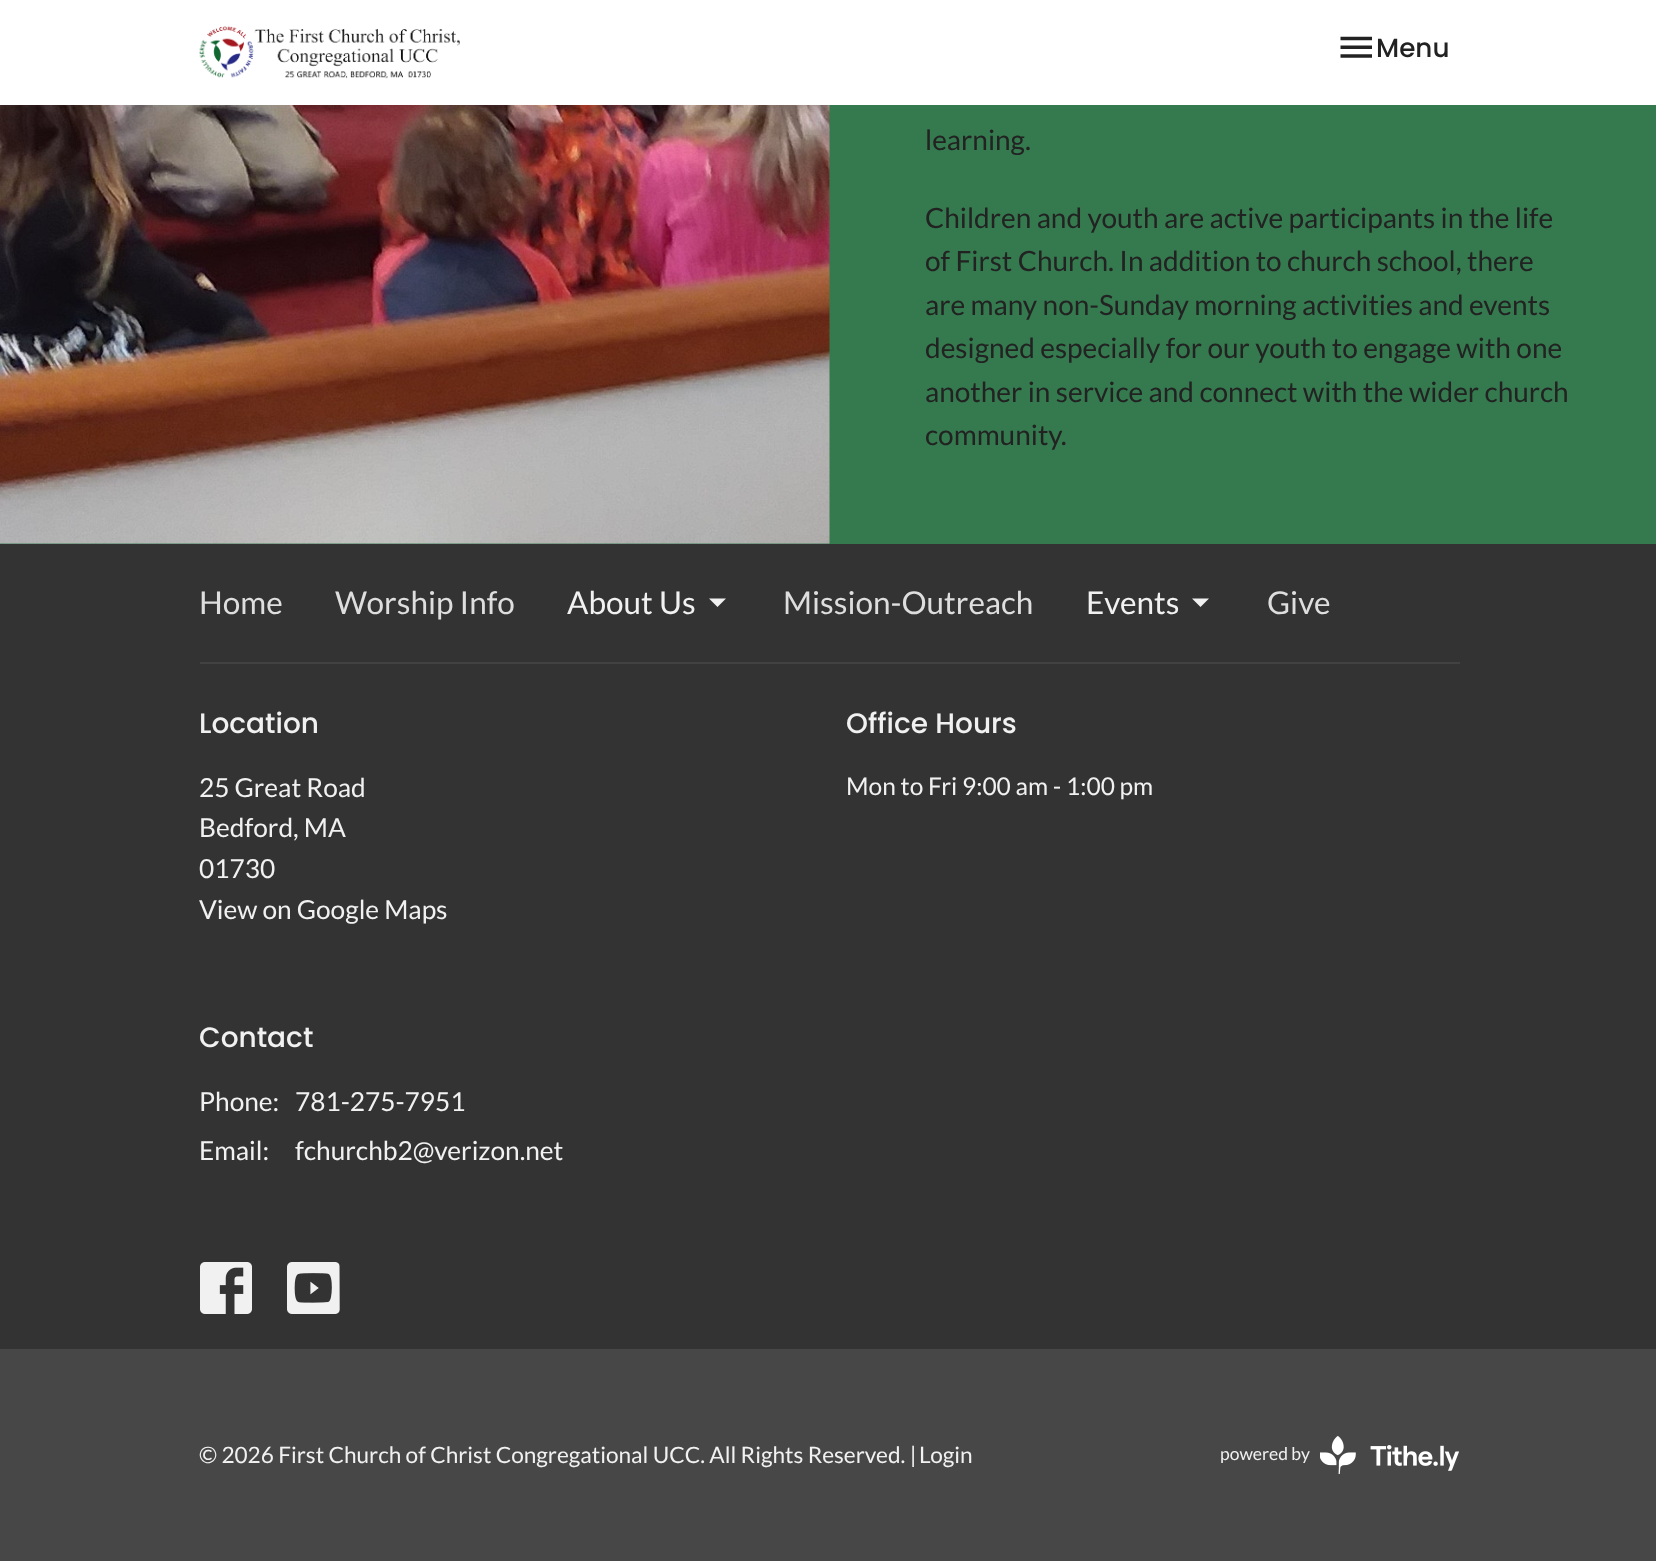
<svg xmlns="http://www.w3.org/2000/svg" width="1656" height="1561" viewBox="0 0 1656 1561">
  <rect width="100%" height="100%" fill="rgb(71,71,71)"/>
  <rect x="0" y="0" width="1656" height="105" fill="rgb(255,255,255)"/>
  <image x="199" y="26" width="261" height="53" href="pic1.png"/>
  <image x="1340" y="36" width="32" height="22" href="pic2.png"/>
  <text x="1376" y="57" font-family="Poppins" font-size="26.25" font-weight="500" fill="rgb(34,34,34)">Menu</text>
  <rect x="0" y="105" width="1656" height="439" fill="rgb(52,122,78)"/>
  <image x="0" y="105" width="830" height="439" href="pic3.png"/>
  <g font-family="Lato" font-size="28" fill="rgb(34,34,34)">
    <text x="925" y="150">learning.</text>
    <text>
      <tspan x="925" y="228">Children and youth are active participants in the life</tspan>
      <tspan x="925" y="271">of First Church. In addition to church school, there</tspan>
      <tspan x="925" y="315">are many non-Sunday morning activities and events</tspan>
      <tspan x="925" y="358">designed especially for our youth to engage with one</tspan>
      <tspan x="925" y="402">another in service and connect with the wider church</tspan>
      <tspan x="925" y="445">community.</tspan>
    </text>
  </g>
  <rect x="0" y="544" width="1656" height="805" fill="rgb(51,51,51)"/>
  <g font-family="Lato" font-size="31.5" fill="rgb(222,222,222)">
    <text x="199" y="614">Home</text>
    <text x="335" y="614">Worship Info</text>
  </g>
  <text x="567" y="614" font-family="Lato" font-size="31.5" fill="rgb(241,241,241)">About Us</text>
  <path d="M709 598.5L717.5 607L726 598.5Z" fill="rgb(241,241,241)"/>
  <text x="783" y="614" font-family="Lato" font-size="31.5" fill="rgb(222,222,222)">Mission-Outreach</text>
  <text x="1086" y="614" font-family="Lato" font-size="31.5" fill="rgb(241,241,241)">Events</text>
  <path d="M1192 598.5L1200.5 607L1209 598.5Z" fill="rgb(241,241,241)"/>
  <text x="1267" y="614" font-family="Lato" font-size="31.5" fill="rgb(222,222,222)">Give</text>
  <rect x="200" y="662" width="1260" height="2" fill="rgb(66,66,66)"/>
  <text x="199" y="733" font-family="Poppins" font-size="28" font-weight="500" fill="rgb(241,241,241)">Location</text>
  <g font-family="Lato" font-size="26.25" fill="rgb(241,241,241)">
    <text>
      <tspan x="199" y="797">25 Great Road</tspan>
      <tspan x="199" y="837">Bedford, MA</tspan>
      <tspan x="199" y="878">01730</tspan>
      <tspan x="199" y="919">View on Google Maps</tspan>
    </text>
  </g>
  <text x="846" y="733" font-family="Poppins" font-size="28" font-weight="500" fill="rgb(241,241,241)">Office Hours</text>
  <text x="846" y="795" font-family="Lato" font-size="24.5" fill="rgb(241,241,241)">Mon to Fri 9:00 am - 1:00 pm</text>
  <text x="199" y="1047" font-family="Poppins" font-size="28" font-weight="500" fill="rgb(241,241,241)">Contact</text>
  <g font-family="Lato" font-size="26.25" fill="rgb(241,241,241)">
    <text x="199" y="1111">Phone:</text>
    <text x="295" y="1111">781-275-7951</text>
    <text x="199" y="1160">Email:</text>
    <text x="295" y="1160">fchurchb2@verizon.net</text>
  </g>
  <image x="200" y="1262" width="52" height="52" href="pic4.png"/>
  <image x="287" y="1262" width="53" height="52" href="pic5.png"/>
  <g font-family="Lato" font-size="22.6" fill="rgb(241,241,241)">
    <text x="199" y="1463">© 2026 First Church of Christ Congregational UCC. All Rights Reserved. |</text>
    <text x="919" y="1463">Login</text>
  </g>
  <text x="1220" y="1460" font-family="Lato" font-size="17.5" fill="rgb(241,241,241)">powered by</text>
  <image x="1320" y="1436" width="139" height="38" href="pic6.png"/>
</svg>
